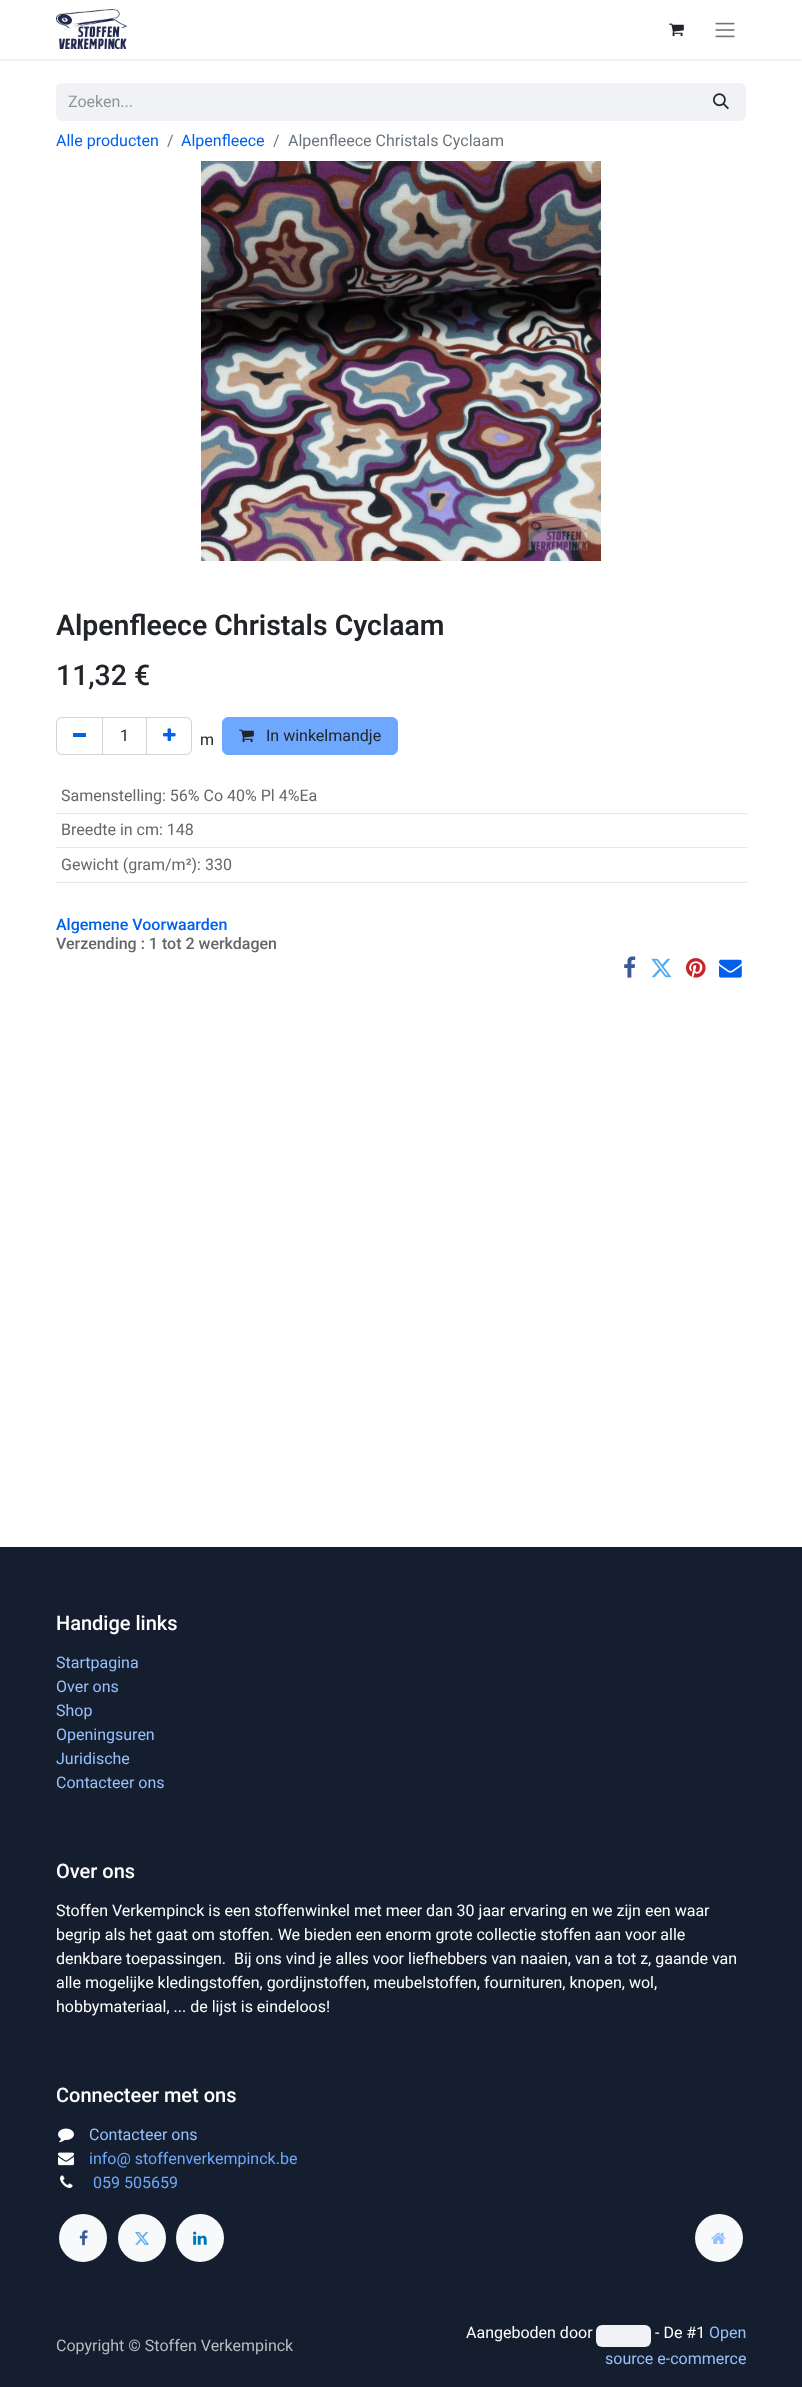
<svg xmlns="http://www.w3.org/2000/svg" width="802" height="2387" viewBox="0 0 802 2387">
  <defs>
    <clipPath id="clip1"><rect x="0" y="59" width="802" height="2"/></clipPath>
  </defs>
  <rect width="100%" height="100%" fill="rgb(255,255,255)"/>
  <g clip-path="url(#clip1)">
    <rect x="0" y="1" width="802" height="59" fill="rgba(0,0,0,0.1)" filter="blur(1.5px)"/>
  </g>
  <image x="56" y="9" width="71" height="40" href="pic1.png"/>
  <image x="669" y="23" width="15" height="14" href="pic2.png"/>
  <image x="715" y="22" width="20" height="16" href="pic3.png"/>
  <path d="M62 83H697V121H62C58.5 121 56 118.5 56 115V89C56 85.5 58.5 83 62 83Z" fill="rgb(240,242,245)"/>
  <text x="68" y="107" font-family="Roboto" font-size="16" fill="rgb(144,146,148)">Zoeken...</text>
  <path d="M696.5 83.5H740C743 83.5 745.5 86 745.5 89V115C745.5 118 743 120.5 740 120.5H696.5Z" fill="rgb(240,242,245)" stroke="rgb(240,242,245)"/>
  <image x="713" y="93" width="16" height="17" href="pic4.png"/>
  <text x="56" y="146" font-family="Roboto" font-size="16" fill="rgb(2,96,235)">Alle producten</text>
  <text x="167" y="146" font-family="Roboto" font-size="16" fill="rgb(108,117,125)">/</text>
  <text x="181" y="146" font-family="Roboto" font-size="16" fill="rgb(2,96,235)">Alpenfleece</text>
  <g font-family="Roboto" font-size="16" fill="rgb(108,117,125)">
    <text x="273" y="146">/</text>
    <text x="288" y="146">Alpenfleece Christals Cyclaam</text>
  </g>
  <image x="201" y="161" width="400" height="400" href="pic5.png"/>
  <text x="56" y="635" font-family="Roboto" font-size="28.4" font-weight="600" fill="rgb(33,37,41)">Alpenfleece Christals Cyclaam</text>
  <text x="56" y="685" font-family="Roboto" font-size="28.4" font-weight="500" fill="rgb(33,37,41)">11,32 €</text>
  <rect x="102.5" y="717.5" width="44" height="37" fill="none" stroke="rgb(206,212,218)"/>
  <path d="M62 717.5H102.5V754.5H62C59 754.5 56.5 752 56.5 749V723C56.5 720 59 717.5 62 717.5Z" fill="none" stroke="rgb(206,212,218)"/>
  <rect x="73" y="733" width="13" height="4" fill="rgb(2,96,235)"/>
  <text x="120" y="741" font-family="Roboto" font-size="16" fill="rgb(33,37,41)">1</text>
  <path d="M146.5 717.5H186C189 717.5 191.5 720 191.5 723V749C191.5 752 189 754.5 186 754.5H146.5Z" fill="none" stroke="rgb(206,212,218)"/>
  <image x="163" y="728" width="13" height="13" href="pic6.png"/>
  <text x="200" y="745" font-family="Roboto" font-size="16" fill="rgb(33,37,41)">m</text>
  <rect x="222.5" y="717.5" width="175" height="37" rx="5.5" fill="rgb(110,168,254)" stroke="rgb(110,168,254)"/>
  <image x="239" y="729" width="15" height="14" href="pic7.png"/>
  <text x="266" y="741" font-family="Roboto" font-size="16" fill="rgb(33,37,41)">In winkelmandje</text>
  <rect x="56" y="813" width="691" height="1" fill="rgb(232,232,232)"/>
  <text x="61" y="801" font-family="Roboto" font-size="16" fill="rgb(100,102,105)">Samenstelling: 56% Co 40% Pl 4%Ea</text>
  <rect x="56" y="847" width="691" height="1" fill="rgb(232,232,232)"/>
  <text x="61" y="835" font-family="Roboto" font-size="16" fill="rgb(100,102,105)">Breedte in cm: 148</text>
  <rect x="56" y="882" width="691" height="1" fill="rgb(232,232,232)"/>
  <text x="61" y="870" font-family="Roboto" font-size="16" fill="rgb(100,102,105)">Gewicht (gram/m²): 330</text>
  <text x="56" y="930" font-family="Roboto" font-size="16" font-weight="500" fill="rgb(2,96,235)">Algemene Voorwaarden</text>
  <text x="56" y="949" font-family="Roboto" font-size="16" font-weight="500" fill="rgb(100,102,105)">Verzending : 1 tot 2 werkdagen</text>
  <image x="624" y="956" width="12" height="22" href="pic8.png"/>
  <image x="651" y="958" width="21" height="20" href="pic9.png"/>
  <image x="686" y="958" width="20" height="20" href="pic10.png"/>
  <image x="719" y="959" width="23" height="19" href="pic11.png"/>
  <rect x="0" y="1547" width="802" height="840" fill="rgb(20,30,46)"/>
  <text x="56" y="1630" font-family="Roboto" font-size="20" font-weight="500" fill="rgb(255,255,255)">Handige links</text>
  <g font-family="Roboto" font-size="16" fill="rgb(151,192,254)">
    <text>
      <tspan x="56" y="1668">Startpagina</tspan>
      <tspan x="56" y="1692">Over ons</tspan>
      <tspan x="56" y="1716">Shop</tspan>
      <tspan x="56" y="1740">Openingsuren</tspan>
      <tspan x="56" y="1764">Juridische</tspan>
      <tspan x="56" y="1788">Contacteer ons</tspan>
    </text>
  </g>
  <text x="56" y="1878" font-family="Roboto" font-size="20" font-weight="500" fill="rgb(255,255,255)">Over ons</text>
  <g font-family="Roboto" font-size="16" fill="rgb(255,255,255)">
    <text xml:space="preserve"><tspan x="56" y="1916">Stoffen Verkempinck is een stoffenwinkel met meer dan 30 jaar ervaring en we zijn een waar</tspan><tspan x="56" y="1940">begrip als het gaat om stoffen. We bieden een enorm grote collectie stoffen aan voor alle</tspan><tspan x="56" y="1964">denkbare toepassingen.  Bij ons vind je alles voor liefhebbers van naaien, van a tot z, gaande van</tspan><tspan x="56" y="1988">alle mogelijke kledingstoffen, gordijnstoffen, meubelstoffen, fournituren, knopen, wol,</tspan><tspan x="56" y="2012">hobbymateriaal, ... de lijst is eindeloos!</tspan></text>
  </g>
  <text x="56" y="2102" font-family="Roboto" font-size="20" font-weight="500" fill="rgb(255,255,255)">Connecteer met ons</text>
  <image x="58" y="2128" width="16" height="15" href="pic12.png"/>
  <text x="89" y="2140" font-family="Roboto" font-size="16" fill="rgb(151,192,254)">Contacteer ons</text>
  <image x="58" y="2152" width="16" height="14" href="pic13.png"/>
  <text x="89" y="2164" font-family="Roboto" font-size="16" fill="rgb(110,168,254)">info@ stoffenverkempinck.be</text>
  <image x="60" y="2175" width="13" height="13" href="pic14.png"/>
  <text x="93" y="2188" font-family="Roboto" font-size="16" fill="rgb(110,168,254)">059 505659</text>
  <circle cx="83" cy="2238" r="24" fill="rgb(248,249,250)"/>
  <image x="79" y="2230" width="9" height="16" href="pic15.png"/>
  <circle cx="142" cy="2238" r="24" fill="rgb(248,249,250)"/>
  <image x="135" y="2231" width="14" height="14" href="pic16.png"/>
  <circle cx="200" cy="2238" r="24" fill="rgb(248,249,250)"/>
  <image x="193" y="2231" width="14" height="14" href="pic17.png"/>
  <circle cx="719" cy="2238" r="24" fill="rgb(248,249,250)"/>
  <image x="711" y="2232" width="15" height="12" href="pic18.png"/>
  <text x="56" y="2351" font-family="Roboto" font-size="16" fill="rgb(185,188,192)">Copyright © Stoffen Verkempinck</text>
  <text x="466" y="2338" font-family="Roboto" font-size="16" fill="rgb(255,255,255)">Aangeboden door</text>
  <rect x="596" y="2325" width="55" height="22" rx="6" fill="rgb(240,242,245)"/>
  <text x="655" y="2338" font-family="Roboto" font-size="16" fill="rgb(255,255,255)">- De #1</text>
  <g font-family="Roboto" font-size="16" fill="rgb(151,192,254)">
    <text x="709" y="2338">Open</text>
    <text x="605" y="2364">source e-commerce</text>
  </g>
</svg>
